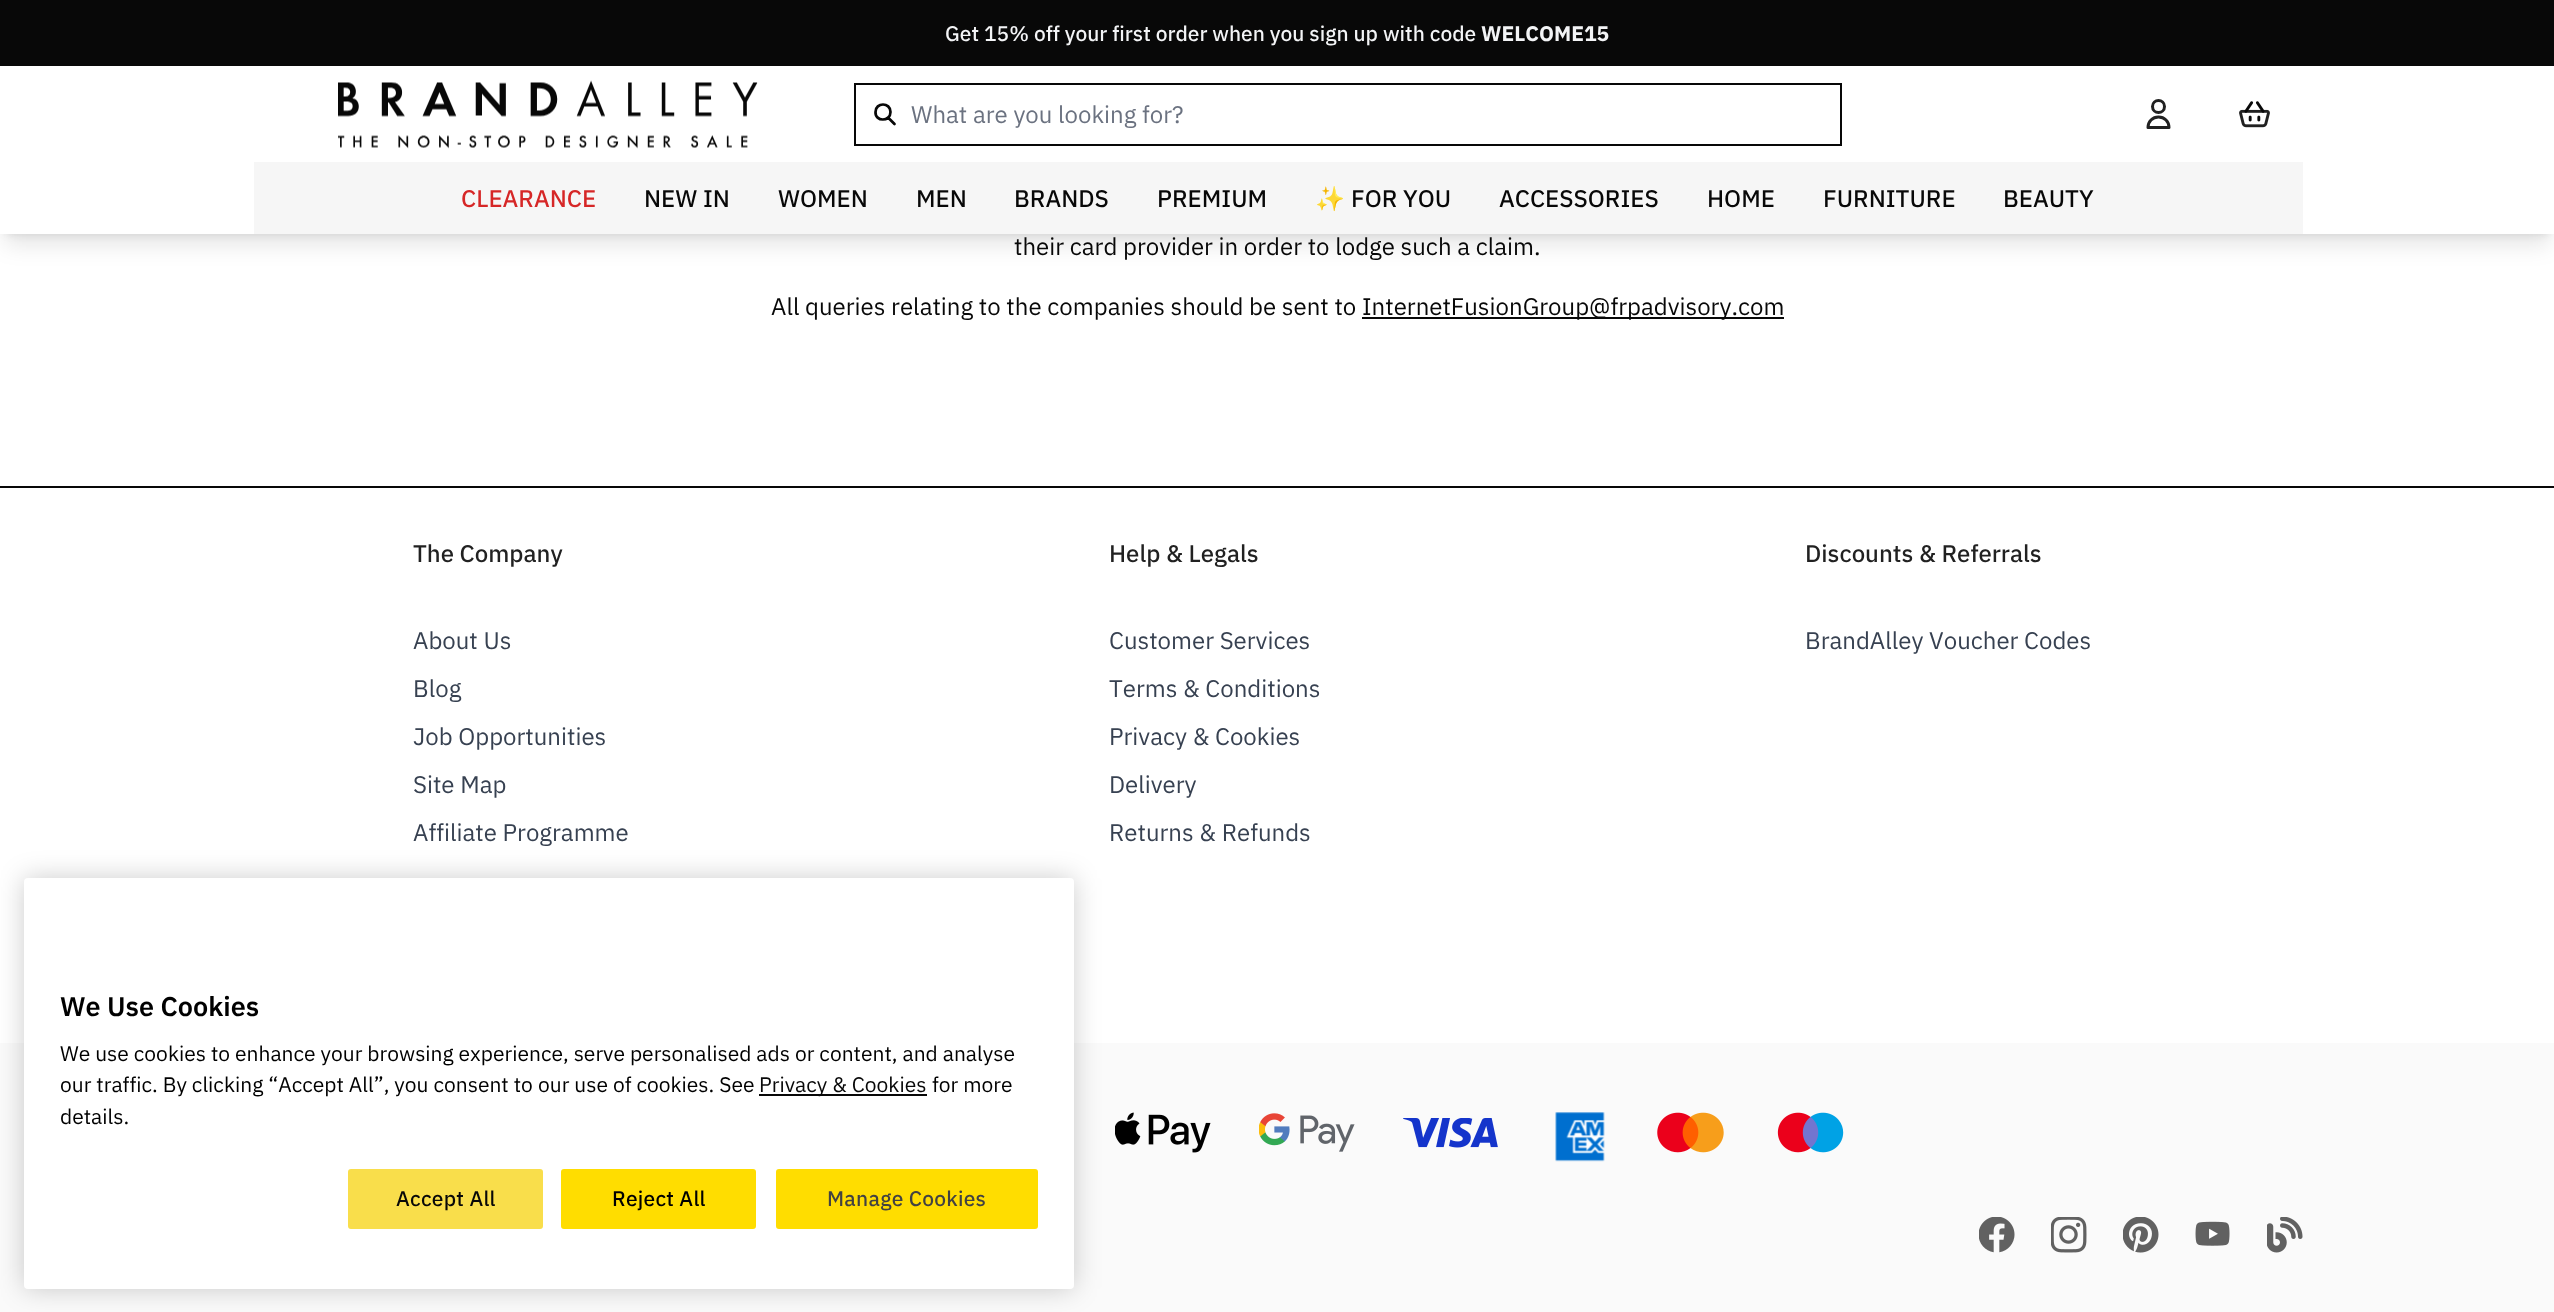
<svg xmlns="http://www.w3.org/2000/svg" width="2554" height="1312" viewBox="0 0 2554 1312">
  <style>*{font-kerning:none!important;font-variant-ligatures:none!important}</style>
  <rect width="100%" height="100%" fill="rgb(255,255,255)"/>
  <rect x="6" y="12" width="2543" height="222" fill="rgba(0,0,0,0.1)" filter="blur(4.5px)"/>
  <rect x="5" y="20" width="2545" height="225" fill="rgba(0,0,0,0.1)" filter="blur(11px)"/>
  <rect x="0" y="66" width="2554" height="168" fill="rgb(255,255,255)"/>
  <rect x="0" y="0" width="2554" height="66" fill="rgb(8,8,8)"/>
  <text x="945" y="41" font-family="Anuphan" font-size="21" font-weight="500" fill="rgb(243,244,246)">Get 15% off your first order when you sign up with code</text>
  <text x="1481" y="41" font-family="Anuphan" font-size="21" font-weight="bold" fill="rgb(243,244,246)">WELCOME15</text>
  <image x="338" y="80" width="420" height="69" href="pic1.png"/>
  <rect x="855" y="84" width="986" height="61" fill="none" stroke="rgb(8,8,8)" stroke-width="2"/>
  <path d="M894.5 124L888 117.5M890.5 112C890.5 122 875 122 875.5 112C875.5 102 890.5 102 890.5 112Z" fill="none" stroke="rgb(8,8,8)" stroke-width="2.7" stroke-linecap="round" stroke-linejoin="round"/>
  <text x="911" y="123" font-family="Anuphan" font-size="24" fill="rgb(107,114,128)">What are you looking for?</text>
  <path d="M2164.5 106.5C2164.5 114.5 2152.5 114.5 2152.5 106.5C2152.5 98.5 2164.5 98.5 2164.5 106.5ZM2158.5 117C2152.5 117 2148 121.5 2148 127.5H2169C2169 121.5 2164.5 117 2158.5 117Z" fill="none" stroke="rgb(33,33,33)" stroke-width="3" stroke-linecap="round" stroke-linejoin="round"/>
  <image x="2239" y="101" width="31" height="27" href="pic2.png"/>
  <rect x="254" y="162" width="2049" height="72" fill="rgb(246,246,246)"/>
  <text x="461" y="207" font-family="Anuphan" font-size="24" font-weight="500" fill="rgb(214,39,39)">CLEARANCE</text>
  <g font-family="Anuphan" font-size="24" font-weight="500" fill="rgb(8,8,8)">
    <text x="644" y="207">NEW IN</text>
    <text x="778" y="207">WOMEN</text>
    <text x="916" y="207">MEN</text>
    <text x="1014" y="207">BRANDS</text>
    <text x="1157" y="207">PREMIUM</text>
  </g>
  <text x="1315" y="207" font-family="Noto Color Emoji" font-size="24" fill="rgb(8,8,8)">✨</text>
  <g font-family="Anuphan" font-size="24" font-weight="500" fill="rgb(8,8,8)">
    <text x="1351" y="207">FOR YOU</text>
    <text x="1499" y="207">ACCESSORIES</text>
    <text x="1707" y="207">HOME</text>
    <text x="1823" y="207">FURNITURE</text>
    <text x="2003" y="207">BEAUTY</text>
  </g>
  <g font-family="Anuphan" font-size="24" fill="rgb(8,8,8)">
    <text x="1014" y="255">their card provider in order to lodge such a claim.</text>
    <text x="771" y="315">All queries relating to the companies should be sent to</text>
  </g>
  <rect x="1362" y="317" width="422" height="2" fill="rgb(8,8,8)"/>
  <text x="1362" y="315" font-family="Anuphan" font-size="24" fill="rgb(8,8,8)">InternetFusionGroup@frpadvisory.com</text>
  <rect x="0" y="486" width="2554" height="2" fill="rgb(8,8,8)"/>
  <text x="413" y="562" font-family="Anuphan" font-size="24" font-weight="500" fill="rgb(33,33,33)">The Company</text>
  <g font-family="Anuphan" font-size="24" fill="rgb(55,65,81)">
    <text x="413" y="649">About Us</text>
    <text x="413" y="697">Blog</text>
    <text x="413" y="745">Job Opportunities</text>
    <text x="413" y="793">Site Map</text>
    <text x="413" y="841">Affiliate Programme</text>
  </g>
  <text x="1109" y="562" font-family="Anuphan" font-size="24" font-weight="500" fill="rgb(33,33,33)">Help &amp; Legals</text>
  <g font-family="Anuphan" font-size="24" fill="rgb(55,65,81)">
    <text x="1109" y="649">Customer Services</text>
    <text x="1109" y="697">Terms &amp; Conditions</text>
    <text x="1109" y="745">Privacy &amp; Cookies</text>
    <text x="1109" y="793">Delivery</text>
    <text x="1109" y="841">Returns &amp; Refunds</text>
  </g>
  <text x="1805" y="562" font-family="Anuphan" font-size="24" font-weight="500" fill="rgb(33,33,33)">Discounts &amp; Referrals</text>
  <text x="1805" y="649" font-family="Anuphan" font-size="24" fill="rgb(55,65,81)">BrandAlley Voucher Codes</text>
  <rect x="0" y="1043" width="2554" height="269" fill="rgb(250,250,250)"/>
  <image x="1115" y="1112" width="96" height="41" href="pic3.png"/>
  <image x="1259" y="1113" width="96" height="39" href="pic4.png"/>
  <image x="1403" y="1118" width="95" height="30" href="pic5.png"/>
  <image x="1555" y="1112" width="50" height="50" href="pic6.png"/>
  <image x="1657" y="1112" width="67" height="41" href="pic7.png"/>
  <image x="1777" y="1112" width="67" height="41" href="pic8.png"/>
  <image x="1979" y="1217" width="36" height="36" href="pic9.png"/>
  <image x="2051" y="1217" width="36" height="36" href="pic10.png"/>
  <image x="2123" y="1217" width="36" height="36" href="pic11.png"/>
  <image x="2195" y="1221" width="35" height="25" href="pic12.png"/>
  <image x="2267" y="1217" width="36" height="36" href="pic13.png"/>
  <rect x="24" y="878" width="1050" height="411" rx="4" fill="rgba(0,0,0,0.2)" filter="blur(13.5px)"/>
  <rect x="24" y="878" width="1050" height="411" rx="4" fill="rgb(255,255,255)"/>
  <text x="60" y="1016" font-family="Anuphan" font-size="27" font-weight="600" fill="rgb(0,0,0)">We Use Cookies</text>
  <g font-family="Anuphan" font-size="21" fill="rgb(0,0,0)">
    <text>
      <tspan x="60" y="1061">We use cookies to enhance your browsing experience, serve personalised ads or content, and analyse</tspan>
      <tspan x="60" y="1092">our traffic. By clicking “Accept All”, you consent to</tspan>
    </text>
    <text x="538" y="1092">our use of cookies. See</text>
  </g>
  <rect x="759" y="1094" width="168" height="2" fill="rgb(8,8,8)"/>
  <text x="759" y="1092" font-family="Anuphan" font-size="21" fill="rgb(8,8,8)">Privacy &amp; Cookies</text>
  <g font-family="Anuphan" font-size="21" fill="rgb(0,0,0)">
    <text x="932" y="1092">for more</text>
    <text x="60" y="1124">details.</text>
  </g>
  <rect x="349" y="1170" width="193" height="58" rx="2" fill="rgb(249,222,75)" stroke="rgb(249,222,75)" stroke-width="2"/>
  <text x="396" y="1206" font-family="Anuphan" font-size="21" font-weight="500" letter-spacing="0.25" fill="rgb(8,8,8)">Accept All</text>
  <rect x="562" y="1170" width="193" height="58" rx="2" fill="rgb(255,221,0)" stroke="rgb(255,221,0)" stroke-width="2"/>
  <text x="612" y="1206" font-family="Anuphan" font-size="21" font-weight="500" letter-spacing="0.25" fill="rgb(0,0,0)">Reject All</text>
  <rect x="777" y="1170" width="260" height="58" rx="2" fill="rgb(255,221,0)" stroke="rgb(255,221,0)" stroke-width="2"/>
  <text x="827" y="1206" font-family="Anuphan" font-size="21" font-weight="500" letter-spacing="0.25" fill="rgb(66,66,66)">Manage Cookies</text>
</svg>
